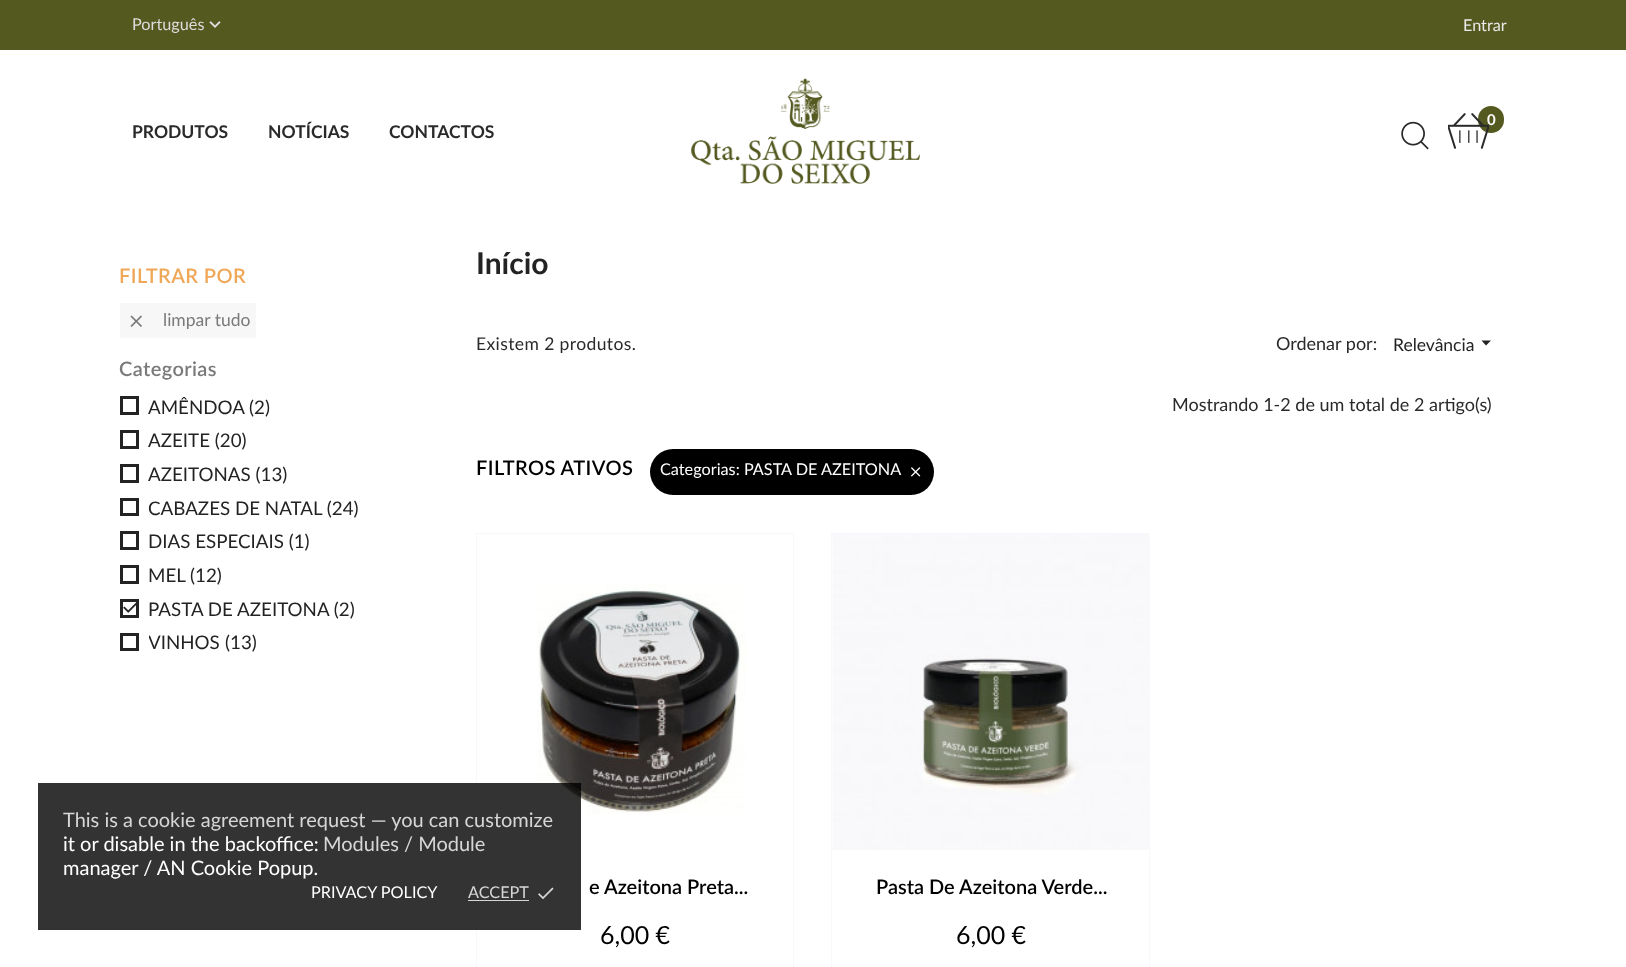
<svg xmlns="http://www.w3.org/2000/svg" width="1626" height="967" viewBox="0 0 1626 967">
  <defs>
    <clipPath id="clip1"><rect x="149" y="631" width="281" height="23"/></clipPath>
  </defs>
  <rect width="100%" height="100%" fill="rgb(255,255,255)"/>
  <rect x="0" y="0" width="1626" height="50" fill="rgb(84,89,32)"/>
  <text x="132" y="30" font-family="Lato" font-size="16.25" fill="rgb(221,221,221)">Português</text>
  <image x="209" y="21" width="12" height="7" href="pic1.png"/>
  <text x="1463" y="31" font-family="Lato" font-size="16.25" fill="rgb(234,234,234)">Entrar</text>
  <g font-family="Lato" font-size="17.5" font-weight="bold" fill="rgb(42,42,42)">
    <text x="132" y="138">PRODUTOS</text>
    <text x="268" y="138">NOTÍCIAS</text>
    <text x="389" y="138">CONTACTOS</text>
  </g>
  <image x="691" y="78" width="229" height="106" href="pic2.png"/>
  <image x="1401" y="121" width="28" height="29" href="pic3.png"/>
  <rect x="1478" y="106" width="26" height="27" rx="13" fill="rgb(84,89,32)"/>
  <text x="1487" y="125" font-family="Lato" font-size="15" font-weight="bold" fill="rgb(255,255,255)">0</text>
  <image x="1448" y="113" width="41" height="36" href="pic4.png"/>
  <text x="119" y="283" font-family="Lato" font-size="20" font-weight="600" letter-spacing="0.4" fill="rgb(239,167,88)">FILTRAR POR</text>
  <rect x="120" y="303" width="136" height="35" fill="rgb(247,247,247)"/>
  <image x="130" y="315" width="12" height="12" href="pic5.png"/>
  <text x="163" y="326" font-family="Lato" font-size="17.5" fill="rgb(122,122,122)">limpar tudo</text>
  <text x="119" y="376" font-family="Lato" font-size="20" font-weight="600" letter-spacing="0.4" fill="rgb(122,122,122)">Categorias</text>
  <rect x="121.5" y="397.5" width="16" height="16" fill="none" stroke="rgb(35,35,35)" stroke-width="3"/>
  <text x="148" y="414" font-family="Lato" font-size="18.75" fill="rgb(35,35,35)">AMÊNDOA (2)</text>
  <rect x="121.5" y="431.5" width="16" height="16" fill="none" stroke="rgb(35,35,35)" stroke-width="3"/>
  <text x="148" y="447" font-family="Lato" font-size="18.75" fill="rgb(35,35,35)">AZEITE (20)</text>
  <rect x="121.5" y="465.5" width="16" height="16" fill="none" stroke="rgb(35,35,35)" stroke-width="3"/>
  <text x="148" y="481" font-family="Lato" font-size="18.75" fill="rgb(35,35,35)">AZEITONAS (13)</text>
  <rect x="121.5" y="499.5" width="16" height="15" fill="none" stroke="rgb(35,35,35)" stroke-width="3"/>
  <text x="148" y="515" font-family="Lato" font-size="18.75" fill="rgb(35,35,35)">CABAZES DE NATAL (24)</text>
  <rect x="121.5" y="532.5" width="16" height="16" fill="none" stroke="rgb(35,35,35)" stroke-width="3"/>
  <text x="148" y="548" font-family="Lato" font-size="18.75" fill="rgb(35,35,35)">DIAS ESPECIAIS (1)</text>
  <rect x="121.5" y="566.5" width="16" height="16" fill="none" stroke="rgb(35,35,35)" stroke-width="3"/>
  <text x="148" y="582" font-family="Lato" font-size="18.75" fill="rgb(35,35,35)">MEL (12)</text>
  <rect x="121.5" y="600.5" width="16" height="16" fill="none" stroke="rgb(35,35,35)" stroke-width="3"/>
  <image x="123" y="601" width="17" height="12" href="pic6.png"/>
  <text x="148" y="616" font-family="Lato" font-size="18.75" fill="rgb(35,35,35)">PASTA DE AZEITONA (2)</text>
  <rect x="121.5" y="634.5" width="16" height="15" fill="none" stroke="rgb(35,35,35)" stroke-width="3"/>
  <g clip-path="url(#clip1)">
    <text x="148" y="649" font-family="Lato" font-size="18.75" fill="rgb(35,35,35)">VINHOS</text>
  </g>
  <text x="225" y="649" font-family="Lato" font-size="18.75" fill="rgb(35,35,35)">(13)</text>
  <text x="476" y="274" font-family="Lato" font-size="30" font-weight="bold" fill="rgb(35,35,35)">Início</text>
  <text x="476" y="350" font-family="Lato" font-size="17.5" letter-spacing="0.4" fill="rgb(42,42,42)">Existem 2 produtos.</text>
  <text x="1276" y="350" font-family="Lato" font-size="18" fill="rgb(42,42,42)">Ordenar por:</text>
  <text x="1393" y="351" font-family="Lato" font-size="17.5" fill="rgb(35,35,35)">Relevância</text>
  <path d="M1481.5 340.5H1491L1486 345.5Z" fill="rgb(35,35,35)"/>
  <text x="1172" y="411" font-family="Lato" font-size="18" fill="rgb(42,42,42)">Mostrando 1-2 de um total de 2 artigo(s)</text>
  <text x="476" y="475" font-family="Lato" font-size="20" font-weight="600" letter-spacing="0.4" fill="rgb(0,0,0)">FILTROS ATIVOS</text>
  <rect x="650" y="449" width="284" height="46" rx="23" fill="rgb(0,0,0)"/>
  <text x="660" y="475" font-family="Lato" font-size="16.25" fill="rgb(255,255,255)">Categorias: PASTA DE AZEITONA</text>
  <image x="911" y="467" width="10" height="10" href="pic7.png"/>
  <rect x="476.5" y="533.5" width="317" height="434" fill="none" stroke="rgb(247,248,251)"/>
  <image x="537" y="584" width="209" height="230" href="pic8.png"/>
  <text x="589" y="894" font-family="Lato" font-size="20" font-weight="600" fill="rgb(0,0,0)">e Azeitona Preta...</text>
  <text x="600" y="944" font-family="Lato" font-size="25" fill="rgb(0,0,0)">6,00 €</text>
  <rect x="831.5" y="533.5" width="318" height="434" fill="none" stroke="rgb(247,248,251)"/>
  <image x="832" y="534" width="317" height="316" href="pic9.png"/>
  <text x="876" y="894" font-family="Lato" font-size="20" font-weight="600" fill="rgb(0,0,0)">Pasta De Azeitona Verde...</text>
  <text x="956" y="944" font-family="Lato" font-size="25" fill="rgb(0,0,0)">6,00 €</text>
  <rect x="38" y="783" width="543" height="147" fill="rgba(0,0,0,0.8)"/>
  <text x="63" y="827" font-family="Lato" font-size="20" fill="rgb(214,214,214)">This is a cookie agreement request — you can customize</text>
  <text x="63" y="851" font-family="Lato" font-size="20" fill="rgb(255,255,255)">it or disable in the backoffice:</text>
  <text x="323" y="851" font-family="Lato" font-size="20" fill="rgb(214,214,214)">Modules / Module</text>
  <text x="63" y="875" font-family="Lato" font-size="20" fill="rgb(255,255,255)">manager / AN Cookie Popup.</text>
  <text x="311" y="898" font-family="Lato" font-size="16.25" fill="rgb(255,255,255)">PRIVACY POLICY</text>
  <text x="468" y="898" font-family="Lato" font-size="16.25" fill="rgb(214,214,214)">ACCEPT</text>
  <rect x="468" y="900" width="61" height="1" fill="rgb(214,214,214)"/>
  <image x="538" y="887" width="16" height="13" href="pic10.png"/>
</svg>
